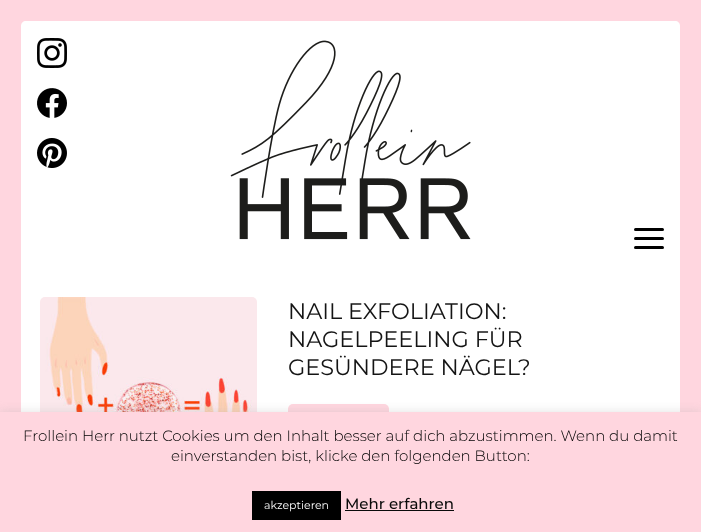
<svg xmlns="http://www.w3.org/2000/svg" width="701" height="532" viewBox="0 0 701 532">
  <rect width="100%" height="100%" fill="rgb(255,214,223)"/>
  <path d="M26 21H675C678 21 680 23 680 26V262H21V26C21 23 23 21 26 21Z" fill="rgb(255,255,255)"/>
  <image x="37" y="38" width="30" height="30" href="pic1.png"/>
  <image x="37" y="88" width="30" height="30" href="pic2.png"/>
  <image x="37" y="138" width="30" height="30" href="pic3.png"/>
  <image x="230" y="40" width="241" height="200" href="pic4.png"/>
  <rect x="634" y="228" width="30" height="3" rx="1.5" fill="rgb(0,0,0)"/>
  <rect x="634" y="237" width="30" height="3" rx="1.5" fill="rgb(0,0,0)"/>
  <rect x="634" y="246" width="30" height="3" rx="1.5" fill="rgb(0,0,0)"/>
  <rect x="21" y="262" width="659" height="150" fill="rgb(255,255,255)"/>
  <image x="40" y="297" width="217" height="115" href="pic5.png"/>
  <g font-family="Montserrat" font-size="22.4" fill="rgb(20,20,20)">
    <text>
      <tspan x="288" y="319">NAIL EXFOLIATION:</tspan>
      <tspan x="288" y="347">NAGELPEELING FÜR</tspan>
      <tspan x="288" y="375">GESÜNDERE NÄGEL?</tspan>
    </text>
  </g>
  <rect x="288" y="404" width="101" height="40" rx="5" fill="rgb(255,214,223)"/>
  <rect x="0" y="411" width="701" height="120" fill="rgba(172,171,171,0.3)" filter="blur(5px)"/>
  <rect x="0" y="412" width="701" height="120" fill="rgb(255,214,223)"/>
  <g font-family="Montserrat" font-size="15" font-weight="300" fill="rgb(0,0,0)">
    <text x="23" y="441">Frollein Herr nutzt Cookies um den Inhalt besser auf dich abzustimmen. Wenn du damit</text>
    <text x="171" y="461">einverstanden bist, klicke den folgenden Button:</text>
  </g>
  <rect x="252" y="491" width="89" height="29" fill="rgb(0,0,0)"/>
  <text x="264" y="509" font-family="Montserrat" font-size="11" fill="rgb(255,255,255)">akzeptieren</text>
  <text x="345" y="509" font-family="Montserrat" font-size="15" font-weight="500" fill="rgb(10,10,10)">Mehr erfahren</text>
  <rect x="345" y="510" width="109" height="1" fill="rgb(10,10,10)"/>
</svg>
